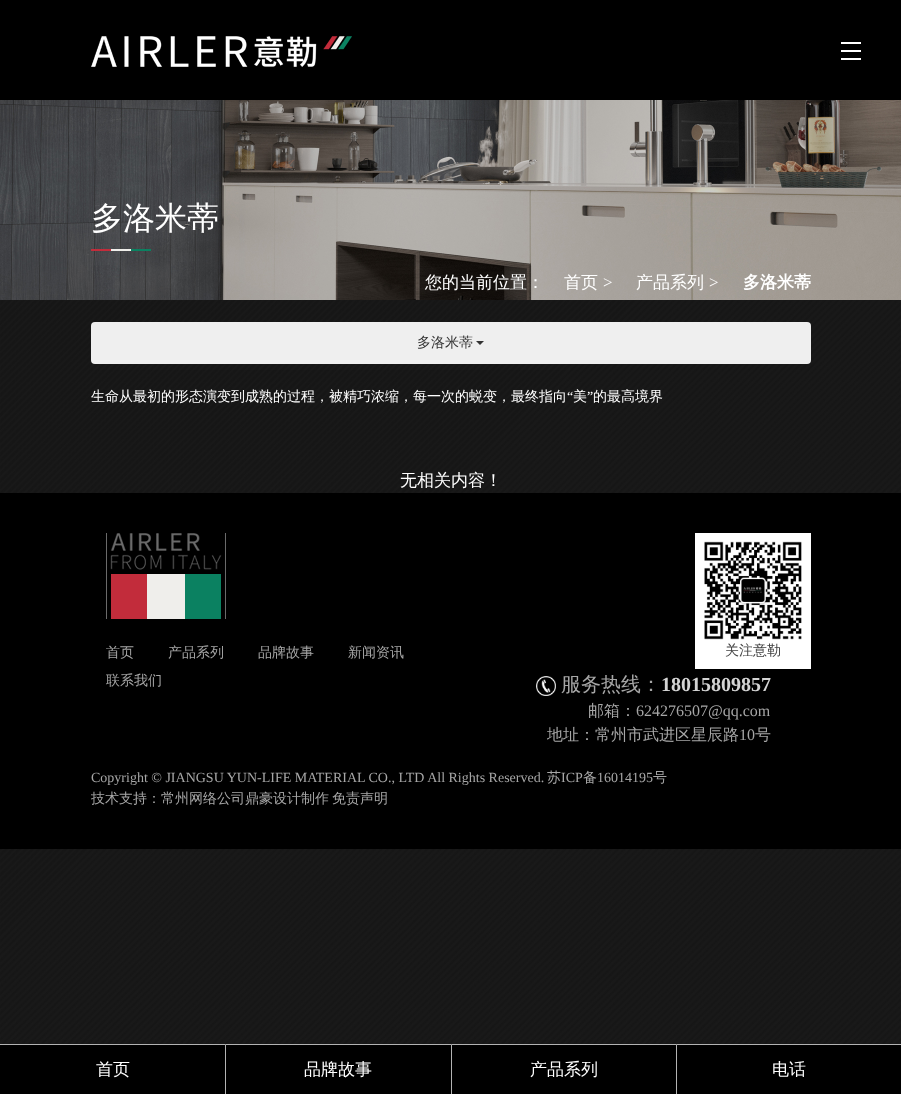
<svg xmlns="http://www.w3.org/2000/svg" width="901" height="1094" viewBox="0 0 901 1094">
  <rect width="100%" height="100%" fill="rgb(255,255,255)"/>
  <image x="0" y="300" width="901" height="744" href="pic1.png"/>
  <rect x="0" y="0" width="901" height="100" fill="rgb(0,0,0)"/>
  <image x="91" y="36" width="261" height="31" href="pic2.png"/>
  <rect x="841" y="50" width="20" height="2" fill="rgb(255,255,255)"/>
  <rect x="841" y="42" width="20" height="2" fill="rgb(255,255,255)"/>
  <rect x="841" y="58" width="20" height="2" fill="rgb(255,255,255)"/>
  <image x="0" y="100" width="901" height="200" href="pic3.png"/>
  <text x="91" y="229" font-family="WenQuanYi Zen Hei" font-size="32" font-weight="500" fill="rgb(255,255,255)">多洛米蒂</text>
  <image x="91" y="249" width="60" height="2" href="pic4.png"/>
  <g font-family="WenQuanYi Zen Hei" font-size="17" font-weight="500" fill="rgb(255,255,255)">
    <text x="425" y="288">您的当前位置：</text>
    <text x="564" y="288">首页</text>
  </g>
  <text x="603" y="288" font-family="Liberation Serif" font-size="17" fill="rgb(255,255,255)">&gt;</text>
  <text x="636" y="288" font-family="WenQuanYi Zen Hei" font-size="17" font-weight="500" fill="rgb(255,255,255)">产品系列</text>
  <text x="709" y="288" font-family="Liberation Serif" font-size="17" fill="rgb(255,255,255)">&gt;</text>
  <text x="743" y="288" font-family="WenQuanYi Zen Hei" font-size="17" font-weight="bold" fill="rgb(255,255,255)">多洛米蒂</text>
  <rect x="91" y="322" width="720" height="42" rx="4" fill="rgb(239,239,239)"/>
  <text x="417" y="347" font-family="WenQuanYi Zen Hei" font-size="14" font-weight="500" fill="rgb(51,51,51)">多洛米蒂</text>
  <path d="M476 341H484L480 345Z" fill="rgb(51,51,51)"/>
  <text x="91" y="401" font-family="WenQuanYi Zen Hei" font-size="14" font-weight="500" fill="rgb(255,255,255)">生命从最初的形态演变到成熟的过程，被精巧浓缩，每一次的蜕变，最终指向</text>
  <text x="567" y="401" font-family="Liberation Serif" font-size="14" fill="rgb(255,255,255)">“</text>
  <text x="573" y="401" font-family="WenQuanYi Zen Hei" font-size="14" font-weight="500" fill="rgb(255,255,255)">美</text>
  <text x="587" y="401" font-family="Liberation Serif" font-size="14" fill="rgb(255,255,255)">”</text>
  <text x="593" y="401" font-family="WenQuanYi Zen Hei" font-size="14" font-weight="500" fill="rgb(255,255,255)">的最高境界</text>
  <text x="400" y="486" font-family="WenQuanYi Zen Hei" font-size="17" font-weight="500" fill="rgb(255,255,255)">无相关内容！</text>
  <rect x="0" y="493" width="901" height="356" fill="rgb(0,0,0)"/>
  <image x="106" y="533" width="120" height="86" href="pic5.png"/>
  <g font-family="WenQuanYi Zen Hei" font-size="14" font-weight="500" fill="rgb(166,166,166)">
    <text x="106" y="657">首页</text>
    <text x="168" y="657">产品系列</text>
    <text x="258" y="657">品牌故事</text>
    <text x="348" y="657">新闻资讯</text>
    <text x="106" y="685">联系我们</text>
  </g>
  <rect x="695" y="533" width="116" height="136" fill="rgb(255,255,255)"/>
  <image x="704" y="541" width="98" height="99" href="pic6.png"/>
  <text x="725" y="655" font-family="WenQuanYi Zen Hei" font-size="14" font-weight="500" fill="rgb(66,66,66)">关注意勒</text>
  <image x="536" y="676" width="20" height="20" href="pic7.png"/>
  <text x="561" y="691" font-family="WenQuanYi Zen Hei" font-size="20" font-weight="500" fill="rgb(166,166,166)">服务热线：</text>
  <text x="661" y="691" font-family="Liberation Serif" font-size="20" font-weight="bold" fill="rgb(212,212,212)">18015809857</text>
  <text x="588" y="716" font-family="WenQuanYi Zen Hei" font-size="16" font-weight="500" fill="rgb(166,166,166)">邮箱：</text>
  <text x="636" y="716" font-family="Liberation Serif" font-size="16" fill="rgb(166,166,166)">624276507@qq.com</text>
  <text x="547" y="740" font-family="WenQuanYi Zen Hei" font-size="16" font-weight="500" fill="rgb(166,166,166)">地址：常州市武进区星辰路</text>
  <text x="739" y="740" font-family="Liberation Serif" font-size="16" fill="rgb(166,166,166)">10</text>
  <text x="755" y="740" font-family="WenQuanYi Zen Hei" font-size="16" font-weight="500" fill="rgb(166,166,166)">号</text>
  <text x="91" y="782" font-family="Liberation Serif" font-size="14" fill="rgb(166,166,166)">Copyright © JIANGSU YUN-LIFE MATERIAL CO., LTD All Rights Reserved.</text>
  <text x="547" y="782" font-family="WenQuanYi Zen Hei" font-size="14" font-weight="500" fill="rgb(166,166,166)">苏</text>
  <text x="561" y="782" font-family="Liberation Serif" font-size="14" fill="rgb(166,166,166)">ICP</text>
  <text x="583" y="782" font-family="WenQuanYi Zen Hei" font-size="14" font-weight="500" fill="rgb(166,166,166)">备</text>
  <text x="597" y="782" font-family="Liberation Serif" font-size="14" fill="rgb(166,166,166)">16014195</text>
  <g font-family="WenQuanYi Zen Hei" font-size="14" font-weight="500" fill="rgb(166,166,166)">
    <text x="653" y="782">号</text>
    <text x="91" y="803">技术支持：常州网络公司鼎豪设计制作</text>
    <text x="332" y="803">免责声明</text>
  </g>
  <rect x="0" y="1045" width="225" height="49" fill="rgb(0,0,0)"/>
  <rect x="0" y="1044" width="225" height="1" fill="rgb(179,179,179)"/>
  <text x="96" y="1075" font-family="WenQuanYi Zen Hei" font-size="17" font-weight="500" fill="rgb(255,255,255)">首页</text>
  <rect x="225" y="1044" width="676" height="50" fill="rgb(0,0,0)"/>
  <path d="M225 1044H451V1045H226Z" fill="rgb(179,179,179)"/>
  <path d="M225 1094V1044L226 1045V1094Z" fill="rgba(255,255,255,0.7)"/>
  <text x="304" y="1075" font-family="WenQuanYi Zen Hei" font-size="17" font-weight="500" fill="rgb(255,255,255)">品牌故事</text>
  <path d="M451 1044H676V1045H452Z" fill="rgb(179,179,179)"/>
  <path d="M451 1094V1044L452 1045V1094Z" fill="rgba(255,255,255,0.7)"/>
  <text x="530" y="1075" font-family="WenQuanYi Zen Hei" font-size="17" font-weight="500" fill="rgb(255,255,255)">产品系列</text>
  <path d="M676 1044H901V1045H677Z" fill="rgb(179,179,179)"/>
  <path d="M676 1094V1044L677 1045V1094Z" fill="rgba(255,255,255,0.7)"/>
  <text x="772" y="1075" font-family="WenQuanYi Zen Hei" font-size="17" font-weight="500" fill="rgb(255,255,255)">电话</text>
</svg>
